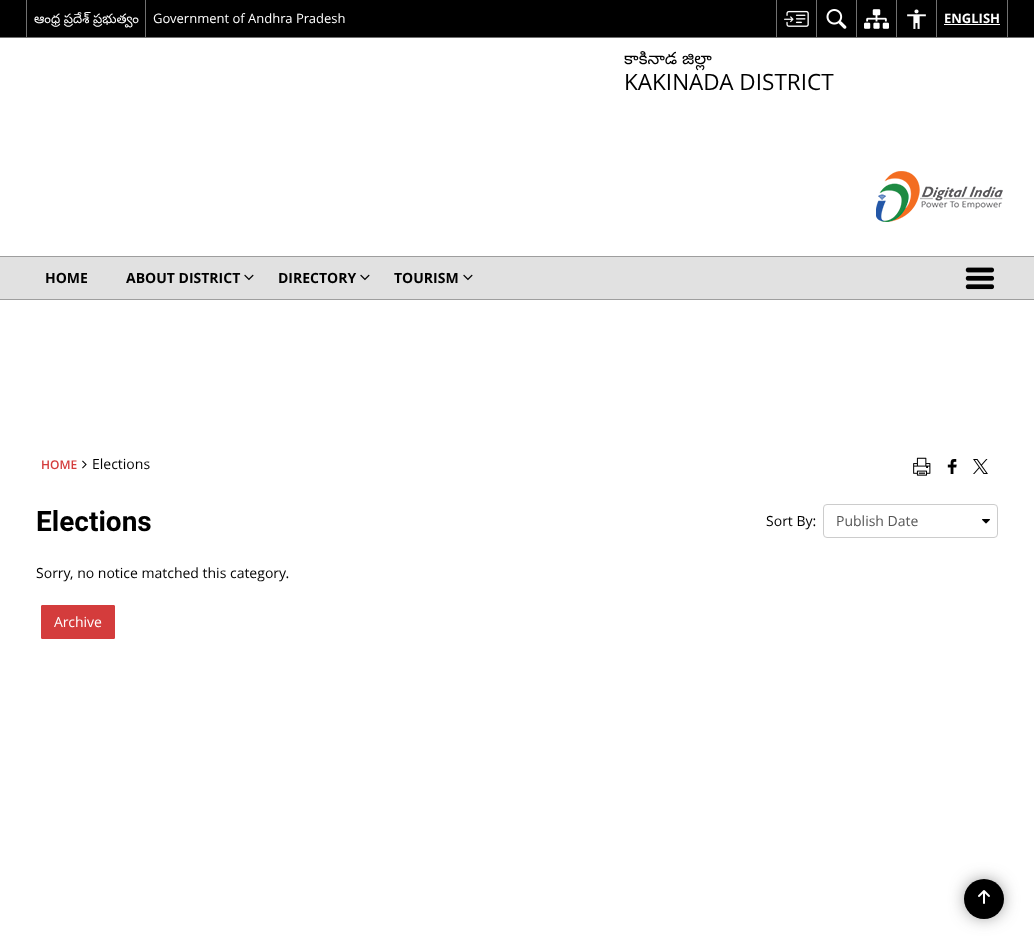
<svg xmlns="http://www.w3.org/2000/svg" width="1034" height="949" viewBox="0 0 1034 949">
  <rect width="100%" height="100%" fill="rgb(255,255,255)"/>
  <rect x="0" y="0" width="1034" height="37" fill="rgb(0,0,0)"/>
  <rect x="0" y="37" width="1034" height="1" fill="rgb(112,112,112)"/>
  <rect x="26" y="0" width="1" height="37" fill="rgb(112,112,112)"/>
  <text x="34" y="23" font-family="Noto Sans Telugu" font-size="13" fill="rgb(255,255,255)">ఆంధ్ర ప్రదేశ్ ప్రభుత్వం</text>
  <rect x="145" y="0" width="1" height="37" fill="rgb(112,112,112)"/>
  <text x="153" y="23" font-family="Open Sans" font-size="13" fill="rgb(255,255,255)">Government of Andhra Pradesh</text>
  <rect x="776" y="0" width="1" height="37" fill="rgb(112,112,112)"/>
  <image x="784" y="10" width="25" height="17" href="pic1.png"/>
  <rect x="816" y="0" width="1" height="37" fill="rgb(112,112,112)"/>
  <image x="826" y="9" width="21" height="20" href="pic2.png"/>
  <rect x="856" y="0" width="1" height="37" fill="rgb(112,112,112)"/>
  <image x="864" y="9" width="25" height="20" href="pic3.png"/>
  <rect x="896" y="0" width="1" height="37" fill="rgb(112,112,112)"/>
  <image x="907" y="9" width="19" height="20" href="pic4.png"/>
  <rect x="1007" y="0" width="1" height="37" fill="rgb(112,112,112)"/>
  <rect x="936" y="0" width="1" height="37" fill="rgb(112,112,112)"/>
  <text x="944" y="23" font-family="Open Sans" font-size="13" font-weight="bold" fill="rgb(255,255,255)">ENGLISH</text>
  <rect x="944" y="24" width="56" height="1" fill="rgb(255,255,255)"/>
  <text x="624" y="64" font-family="Noto Sans Telugu" font-size="16.75" fill="rgb(0,0,0)">కాకినాడ జిల్లా</text>
  <text x="624" y="90" font-family="Open Sans" font-size="22.5" fill="rgb(0,0,0)">KAKINADA DISTRICT</text>
  <image x="876" y="171" width="127" height="51" href="pic5.png"/>
  <rect x="0" y="257" width="1034" height="42" fill="rgb(225,225,225)"/>
  <rect x="0" y="256" width="1034" height="1" fill="rgb(158,158,158)"/>
  <rect x="0" y="299" width="1034" height="1" fill="rgb(158,158,158)"/>
  <g font-family="Open Sans" font-size="14" font-weight="bold" fill="rgb(0,0,0)">
    <text x="45" y="283">HOME</text>
    <text x="126" y="283">ABOUT DISTRICT</text>
  </g>
  <image x="244" y="274" width="10" height="7" href="pic6.png"/>
  <text x="278" y="283" font-family="Open Sans" font-size="14" font-weight="bold" fill="rgb(0,0,0)">DIRECTORY</text>
  <image x="360" y="274" width="10" height="7" href="pic6.png"/>
  <text x="394" y="283" font-family="Open Sans" font-size="14" font-weight="bold" fill="rgb(0,0,0)">TOURISM</text>
  <image x="463" y="274" width="10" height="7" href="pic6.png"/>
  <image x="965" y="267" width="30" height="23" href="pic7.png"/>
  <text x="41" y="469" font-family="Open Sans" font-size="12" font-weight="600" fill="rgb(212,60,60)">HOME</text>
  <image x="82" y="460" width="5" height="9" href="pic8.png"/>
  <text x="92" y="469" font-family="Open Sans" font-size="14" fill="rgb(0,0,0)">Elections</text>
  <image x="913" y="457" width="18" height="19" href="pic9.png"/>
  <image x="947" y="459" width="10" height="15" href="pic10.png"/>
  <image x="973" y="459" width="15" height="15" href="pic11.png"/>
  <text x="36" y="531" font-family="Roboto" font-size="28" font-weight="bold" fill="rgb(0,0,0)">Elections</text>
  <text x="766" y="526" font-family="Open Sans" font-size="14" fill="rgb(0,0,0)">Sort By:</text>
  <image x="982" y="519" width="8" height="5" href="pic12.png"/>
  <rect x="823.5" y="504.5" width="174" height="33" rx="3.5" fill="none" stroke="rgb(204,204,204)"/>
  <text x="836" y="526" font-family="Open Sans" font-size="14" fill="rgb(85,85,85)">Publish Date</text>
  <text x="36" y="578" font-family="Open Sans" font-size="14" fill="rgb(0,0,0)">Sorry, no notice matched this category.</text>
  <rect x="41.5" y="605.5" width="73" height="33" rx="0.5" fill="rgb(212,60,60)" stroke="rgb(212,60,60)"/>
  <text x="54" y="627" font-family="Open Sans" font-size="14" fill="rgb(255,255,255)">Archive</text>
  <rect x="969" y="884" width="30" height="30" rx="15" fill="rgb(60,60,60)" filter="blur(9.5px)"/>
  <circle cx="984" cy="899" r="20" fill="rgb(0,0,0)"/>
  <image x="978" y="890" width="12" height="14" href="pic13.png"/>
</svg>
